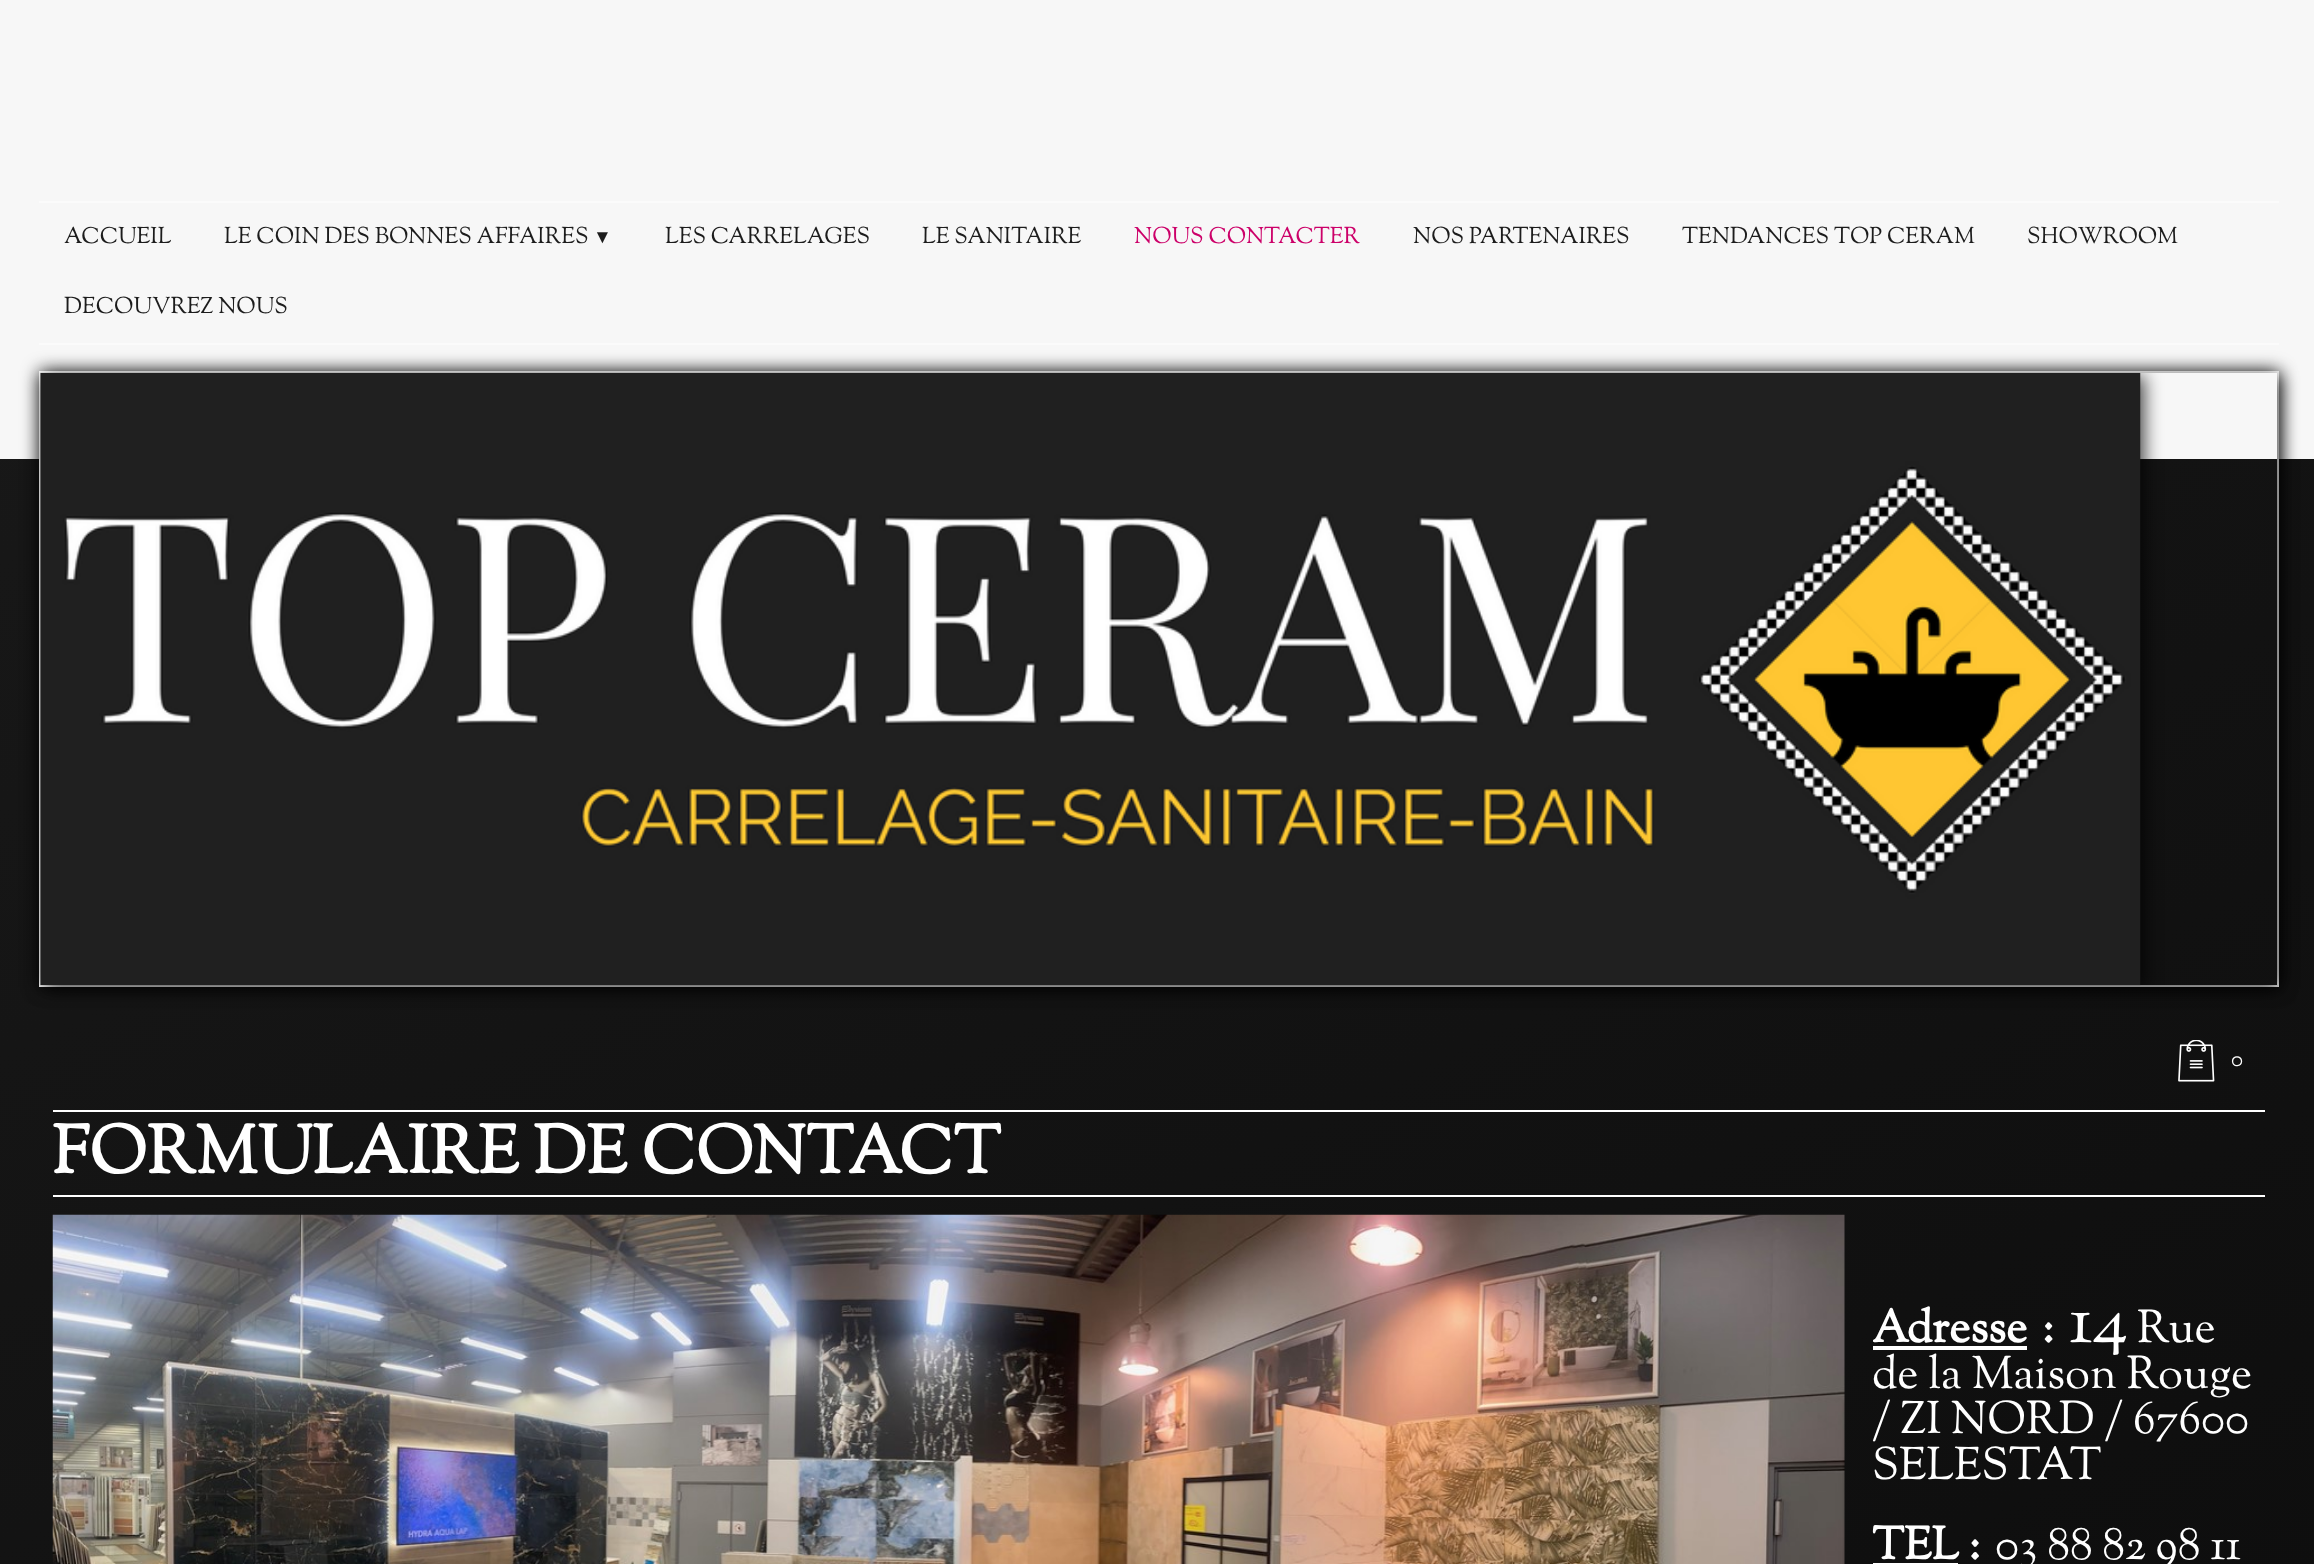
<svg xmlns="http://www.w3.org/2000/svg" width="2314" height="1564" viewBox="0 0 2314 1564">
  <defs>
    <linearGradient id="g1" gradientUnits="userSpaceOnUse" x1="-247" y1="-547" x2="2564" y2="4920"><stop offset="0" stop-color="rgb(28,28,28)"/><stop offset="1" stop-color="rgb(0,0,0)"/></linearGradient>
    <clipPath id="clip1"><path d="M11 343H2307V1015H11ZM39 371H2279V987H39Z" clip-rule="evenodd"/></clipPath>
    <clipPath id="clip2"><path d="M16 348H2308V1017H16ZM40 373H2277V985H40Z" clip-rule="evenodd"/></clipPath>
    <clipPath id="clip3"><rect x="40" y="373" width="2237" height="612"/></clipPath>
  </defs>
  <rect width="100%" height="100%" fill="rgb(247,247,247)"/>
  <rect x="39" y="201" width="2240" height="2" fill="rgb(251,251,251)"/>
  <rect x="39" y="343" width="2240" height="2" fill="rgb(251,251,251)"/>
  <g font-family="Sorts Mill Goudy" font-size="22.75" fill="rgb(28,28,28)">
    <text x="64" y="243">ACCUEIL</text>
    <text x="224" y="243">LE COIN DES BONNES AFFAIRES</text>
  </g>
  <text x="593" y="243" font-family="Liberation Serif" font-size="19" fill="rgb(28,28,28)">▼</text>
  <g font-family="Sorts Mill Goudy" font-size="22.75" fill="rgb(28,28,28)">
    <text x="665" y="243">LES CARRELAGES</text>
    <text x="922" y="243">LE SANITAIRE</text>
  </g>
  <text x="1134" y="243" font-family="Sorts Mill Goudy" font-size="22.75" fill="rgb(204,0,105)">NOUS CONTACTER</text>
  <g font-family="Sorts Mill Goudy" font-size="22.75" fill="rgb(28,28,28)">
    <text x="1413" y="243">NOS PARTENAIRES</text>
    <text x="1682" y="243">TENDANCES TOP CERAM</text>
    <text x="2027" y="243">SHOWROOM</text>
    <text x="64" y="313">DECOUVREZ NOUS</text>
  </g>
  <rect x="0" y="459" width="2314" height="1105" fill="url(#g1)"/>
  <g clip-path="url(#clip1)">
    <rect x="39" y="371" width="2240" height="616" fill="rgba(0,0,0,0.75)" filter="blur(9px)"/>
  </g>
  <rect x="40" y="372" width="2238" height="614" fill="none" stroke="rgb(255,255,255)" stroke-width="2"/>
  <g clip-path="url(#clip2)">
    <rect x="44" y="376" width="2236" height="613" fill="rgba(0,0,0,0.75)" filter="blur(9px)"/>
  </g>
  <g clip-path="url(#clip3)">
    <rect x="44" y="376" width="2100" height="613" fill="rgba(0,0,0,0.75)" filter="blur(9px)"/>
  </g>
  <image x="40" y="372" width="2101" height="614" href="pic1.png"/>
  <image x="2178" y="1040" width="37" height="42" href="pic2.png"/>
  <text x="2231" y="1066" font-family="Sorts Mill Goudy" font-size="22.75" fill="rgb(255,255,255)">0</text>
  <rect x="53" y="1110" width="2212" height="2" fill="rgb(255,255,255)"/>
  <rect x="53" y="1195" width="2212" height="2" fill="rgb(255,255,255)"/>
  <text x="52" y="1173" font-family="Sorts Mill Goudy" font-size="67.4" font-weight="bold" fill="rgb(255,255,255)">FORMULAIRE DE CONTACT</text>
  <image x="52" y="1214" width="1793" height="350" href="pic3.png"/>
  <text x="1872" y="1342" font-family="Sorts Mill Goudy" font-size="45.5" font-weight="bold" fill="rgb(255,255,255)">Adresse</text>
  <rect x="1873" y="1346" width="154" height="4" fill="rgb(255,255,255)"/>
  <text x="2042" y="1342" font-family="Sorts Mill Goudy" font-size="45.5" font-weight="bold" fill="rgb(255,255,255)">:</text>
  <text x="2069" y="1342" font-family="Sorts Mill Goudy" font-size="70" fill="rgb(255,255,255)">14</text>
  <g font-family="Sorts Mill Goudy" font-size="45.5" fill="rgb(255,255,255)">
    <text x="2137" y="1342">Rue</text>
    <text>
      <tspan x="1872" y="1388">de la Maison Rouge</tspan>
      <tspan x="1872" y="1433">/ ZI NORD / 67600</tspan>
      <tspan x="1872" y="1479">SELESTAT</tspan>
    </text>
  </g>
  <text x="1872" y="1559" font-family="Sorts Mill Goudy" font-size="45.5" font-weight="bold" fill="rgb(255,255,255)">TEL :</text>
  <rect x="1873" y="1563" width="85" height="1" fill="rgb(255,255,255)"/>
  <text x="1995" y="1559" font-family="Sorts Mill Goudy" font-size="45.5" fill="rgb(255,255,255)">03 88 82 98 11</text>
</svg>
